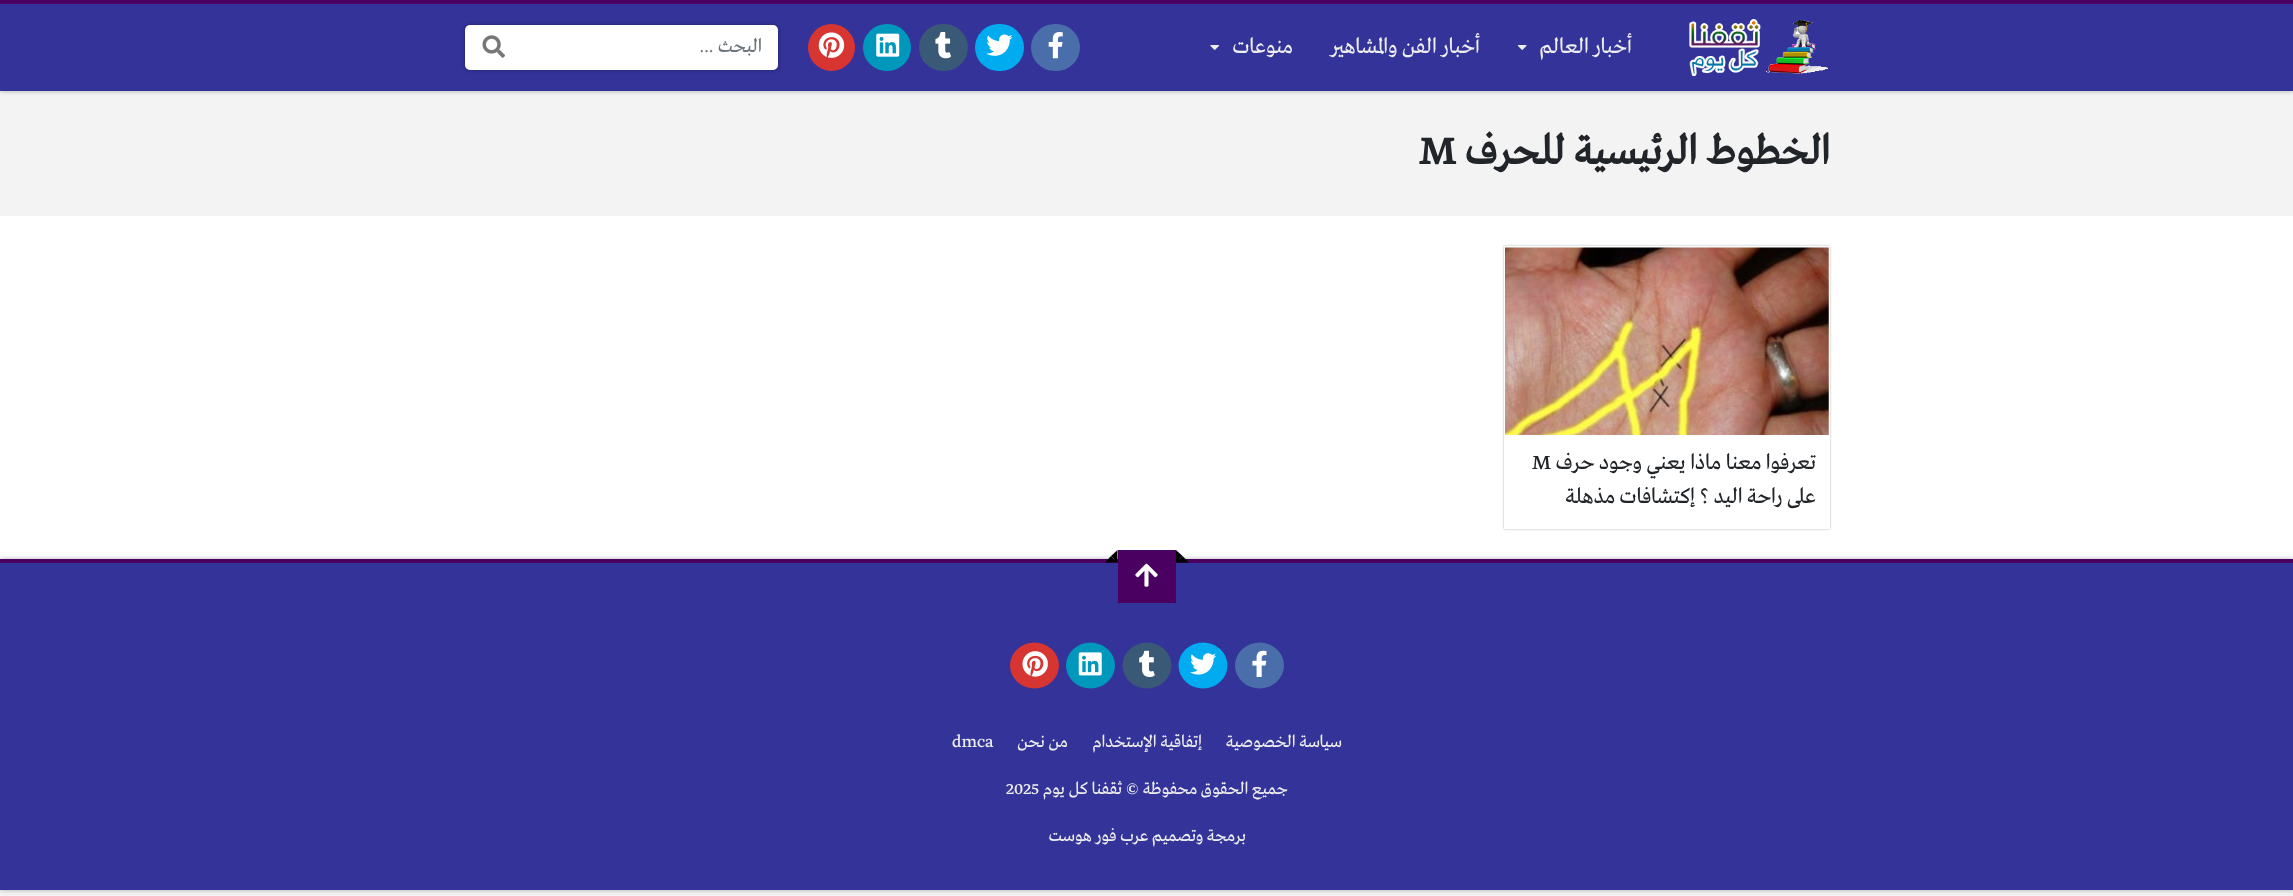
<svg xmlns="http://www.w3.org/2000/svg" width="2293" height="896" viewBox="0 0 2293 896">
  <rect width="100%" height="100%" fill="rgb(243,243,243)"/>
  <rect x="0" y="0" width="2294" height="91" fill="rgba(0,0,0,0.3)" filter="blur(2.5px)"/>
  <rect x="0" y="0" width="2293" height="4" fill="rgb(74,0,96)"/>
  <rect x="0" y="4" width="2293" height="87" fill="rgb(51,51,153)"/>
  <image x="1689" y="19" width="139" height="58" href="pic1.png"/>
  <text x="1632" y="53" font-family="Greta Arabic" font-size="22.5" direction="rtl" fill="rgb(238,238,238)">أخبار العالم</text>
  <image x="1517" y="45" width="10" height="5" href="pic2.png"/>
  <g font-family="Greta Arabic" font-size="22.5" direction="rtl" fill="rgb(238,238,238)">
    <text x="1480" y="53">أخبار الفن والمشاهير</text>
    <text x="1293" y="53">منوعات</text>
  </g>
  <image x="1210" y="45" width="9" height="5" href="pic3.png"/>
  <rect x="1031" y="24" width="49" height="47" rx="23.5" fill="rgb(74,110,169)"/>
  <image x="1048" y="32" width="15" height="27" href="pic4.png"/>
  <rect x="975" y="24" width="49" height="47" rx="23.5" fill="rgb(0,171,240)"/>
  <image x="986" y="34" width="27" height="22" href="pic5.png"/>
  <rect x="919" y="24" width="49" height="47" rx="23.5" fill="rgb(57,89,118)"/>
  <image x="935" y="32" width="16" height="27" href="pic6.png"/>
  <rect x="863" y="24" width="48" height="47" rx="23.5" fill="rgb(0,151,189)"/>
  <image x="876" y="33" width="24" height="24" href="pic7.png"/>
  <circle cx="831.5" cy="47.5" r="23.5" fill="rgb(215,53,50)"/>
  <image x="818" y="32" width="27" height="26" href="pic8.png"/>
  <rect x="465" y="25" width="313" height="45" rx="5" fill="rgba(0,0,0,0.3)" filter="blur(2px)"/>
  <rect x="465" y="25" width="313" height="45" rx="5" fill="rgb(255,255,255)"/>
  <text x="762" y="52" font-family="Greta Arabic" font-size="20" direction="rtl" fill="rgb(108,117,125)">البحث ...</text>
  <image x="482" y="35" width="23" height="23" href="pic9.png"/>
  <text x="1830" y="164" font-family="Greta Arabic" font-size="43" font-weight="bold" direction="rtl" fill="rgb(33,37,41)">الخطوط الرئيسية للحرف</text>
  <text x="1419" y="164" font-family="Greta Arabic" font-size="43" font-weight="bold" fill="rgb(33,37,41)">M</text>
  <rect x="0" y="216" width="2293" height="343" fill="rgb(255,255,255)"/>
  <rect x="1504" y="246" width="326" height="283" fill="rgba(0,0,0,0.3)" filter="blur(1px)"/>
  <rect x="1504" y="246" width="326" height="283" fill="rgb(255,255,255)"/>
  <image x="1505" y="247" width="324" height="188" href="pic10.png"/>
  <text x="1816" y="469" font-family="Greta Arabic" font-size="22.5" direction="rtl" fill="rgb(33,37,41)">تعرفوا معنا ماذا يعني وجود حرف</text>
  <text x="1532" y="469" font-family="Greta Arabic" font-size="22.5" fill="rgb(33,37,41)">M</text>
  <text x="1816" y="503" font-family="Greta Arabic" font-size="22.5" direction="rtl" fill="rgb(33,37,41)">على راحة اليد ؟ إكتشافات مذهلة</text>
  <rect x="0" y="559" width="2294" height="331" fill="rgba(0,0,0,0.3)" filter="blur(2.5px)"/>
  <rect x="0" y="563" width="2293" height="327" fill="rgb(51,51,153)"/>
  <rect x="0" y="559" width="2293" height="4" fill="rgb(74,0,96)"/>
  <rect x="1118" y="550" width="58" height="53" fill="rgb(74,0,96)"/>
  <path d="M1189 562.5H1176L1182.5 556Z" fill="rgb(0,0,0)"/>
  <path d="M1176 562.5V550L1182.5 556Z" fill="rgb(0,0,0)"/>
  <path d="M1117.5 550V562.5L1111 556Z" fill="rgb(0,0,0)"/>
  <path d="M1117.5 562.5H1105L1111 556Z" fill="rgb(0,0,0)"/>
  <image x="1135" y="563" width="23" height="24" href="pic11.png"/>
  <ellipse cx="1259.5" cy="665.5" rx="24.5" ry="23" fill="rgb(74,110,169)"/>
  <image x="1252" y="650" width="15" height="27" href="pic12.png"/>
  <ellipse cx="1203" cy="665.5" rx="24.5" ry="23" fill="rgb(0,171,240)"/>
  <image x="1190" y="653" width="27" height="22" href="pic13.png"/>
  <ellipse cx="1147" cy="665.5" rx="24.5" ry="23" fill="rgb(57,89,118)"/>
  <image x="1139" y="650" width="16" height="27" href="pic14.png"/>
  <ellipse cx="1090.5" cy="665.5" rx="24.5" ry="23" fill="rgb(0,151,189)"/>
  <image x="1078" y="652" width="24" height="24" href="pic15.png"/>
  <ellipse cx="1034.5" cy="665.5" rx="24.5" ry="23" fill="rgb(215,53,50)"/>
  <image x="1022" y="651" width="26" height="26" href="pic16.png"/>
  <g font-family="Greta Arabic" font-size="18" direction="rtl" fill="rgb(238,238,238)">
    <text x="1342" y="747">سياسة الخصوصية</text>
    <text x="1202" y="747">إتفاقية الإستخدام</text>
    <text x="1068" y="747">من نحن</text>
  </g>
  <text x="952" y="747" font-family="Greta Arabic" font-size="18" fill="rgb(238,238,238)">dmca</text>
  <text x="1288" y="794" font-family="Greta Arabic" font-size="18" direction="rtl" fill="rgb(238,238,238)">جميع الحقوق محفوظة © ثقفنا كل يوم</text>
  <text x="1006" y="794" font-family="Greta Arabic" font-size="18" fill="rgb(238,238,238)">2025</text>
  <text x="1246" y="841" font-family="Greta Arabic" font-size="18" direction="rtl" fill="rgb(238,238,238)">برمجة وتصميم عرب فور هوست</text>
</svg>
